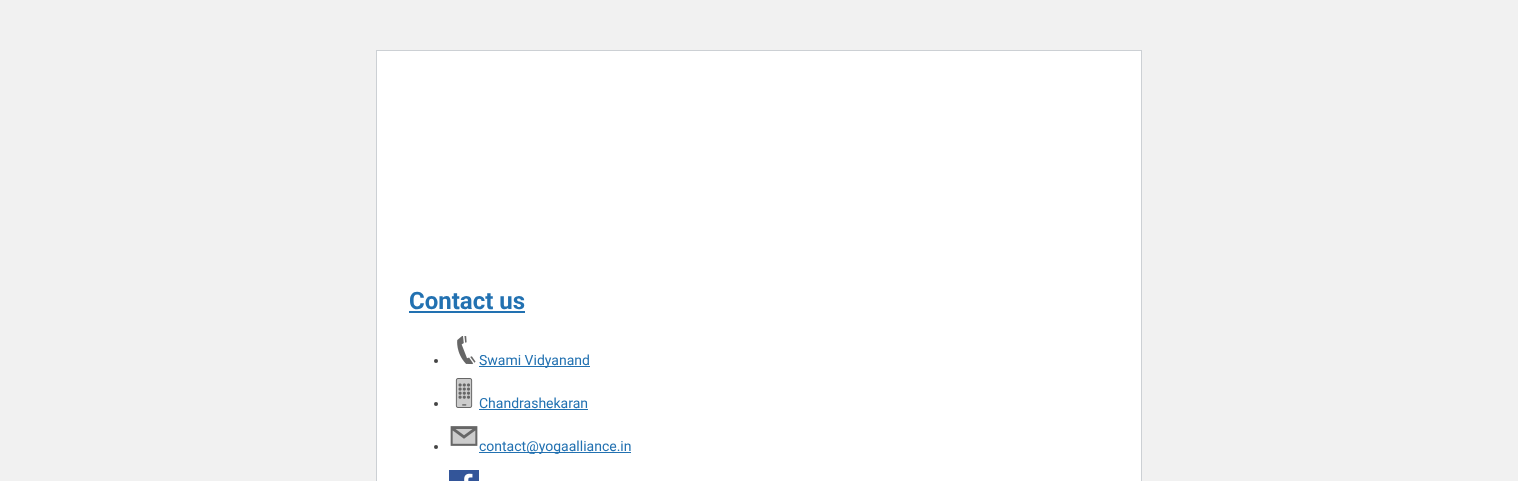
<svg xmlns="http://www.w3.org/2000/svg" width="1518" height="481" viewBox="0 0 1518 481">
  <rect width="100%" height="100%" fill="rgb(241,241,241)"/>
  <rect x="376.5" y="50.5" width="765" height="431" fill="rgb(255,255,255)" stroke="rgb(204,208,212)"/>
  <text x="409" y="309" font-family="Roboto" font-size="24" font-weight="bold" fill="rgb(34,113,177)">Contact us</text>
  <rect x="409" y="311" width="116" height="2" fill="rgb(34,113,177)"/>
  <circle cx="436" cy="361" r="2" fill="rgb(68,68,68)"/>
  <image x="457" y="336" width="19" height="29" href="pic1.png"/>
  <rect x="479" y="366" width="111" height="1" fill="rgb(34,113,177)"/>
  <text x="479" y="365" font-family="Roboto" font-size="14" fill="rgb(34,113,177)">Swami Vidyanand</text>
  <circle cx="436" cy="404" r="2" fill="rgb(68,68,68)"/>
  <image x="455" y="378" width="18" height="30" href="pic2.png"/>
  <text x="479" y="408" font-family="Roboto" font-size="14" fill="rgb(34,113,177)">Chandrashekaran</text>
  <rect x="479" y="409" width="109" height="1" fill="rgb(34,113,177)"/>
  <image x="450" y="426" width="28" height="20" href="pic3.png"/>
  <circle cx="436" cy="447" r="2" fill="rgb(68,68,68)"/>
  <rect x="479" y="452" width="152" height="1" fill="rgb(34,113,177)"/>
  <text x="479" y="451" font-family="Roboto" font-size="14" fill="rgb(34,113,177)">contact@yogaalliance.in</text>
  <image x="449" y="470" width="30" height="11" href="pic4.png"/>
</svg>
